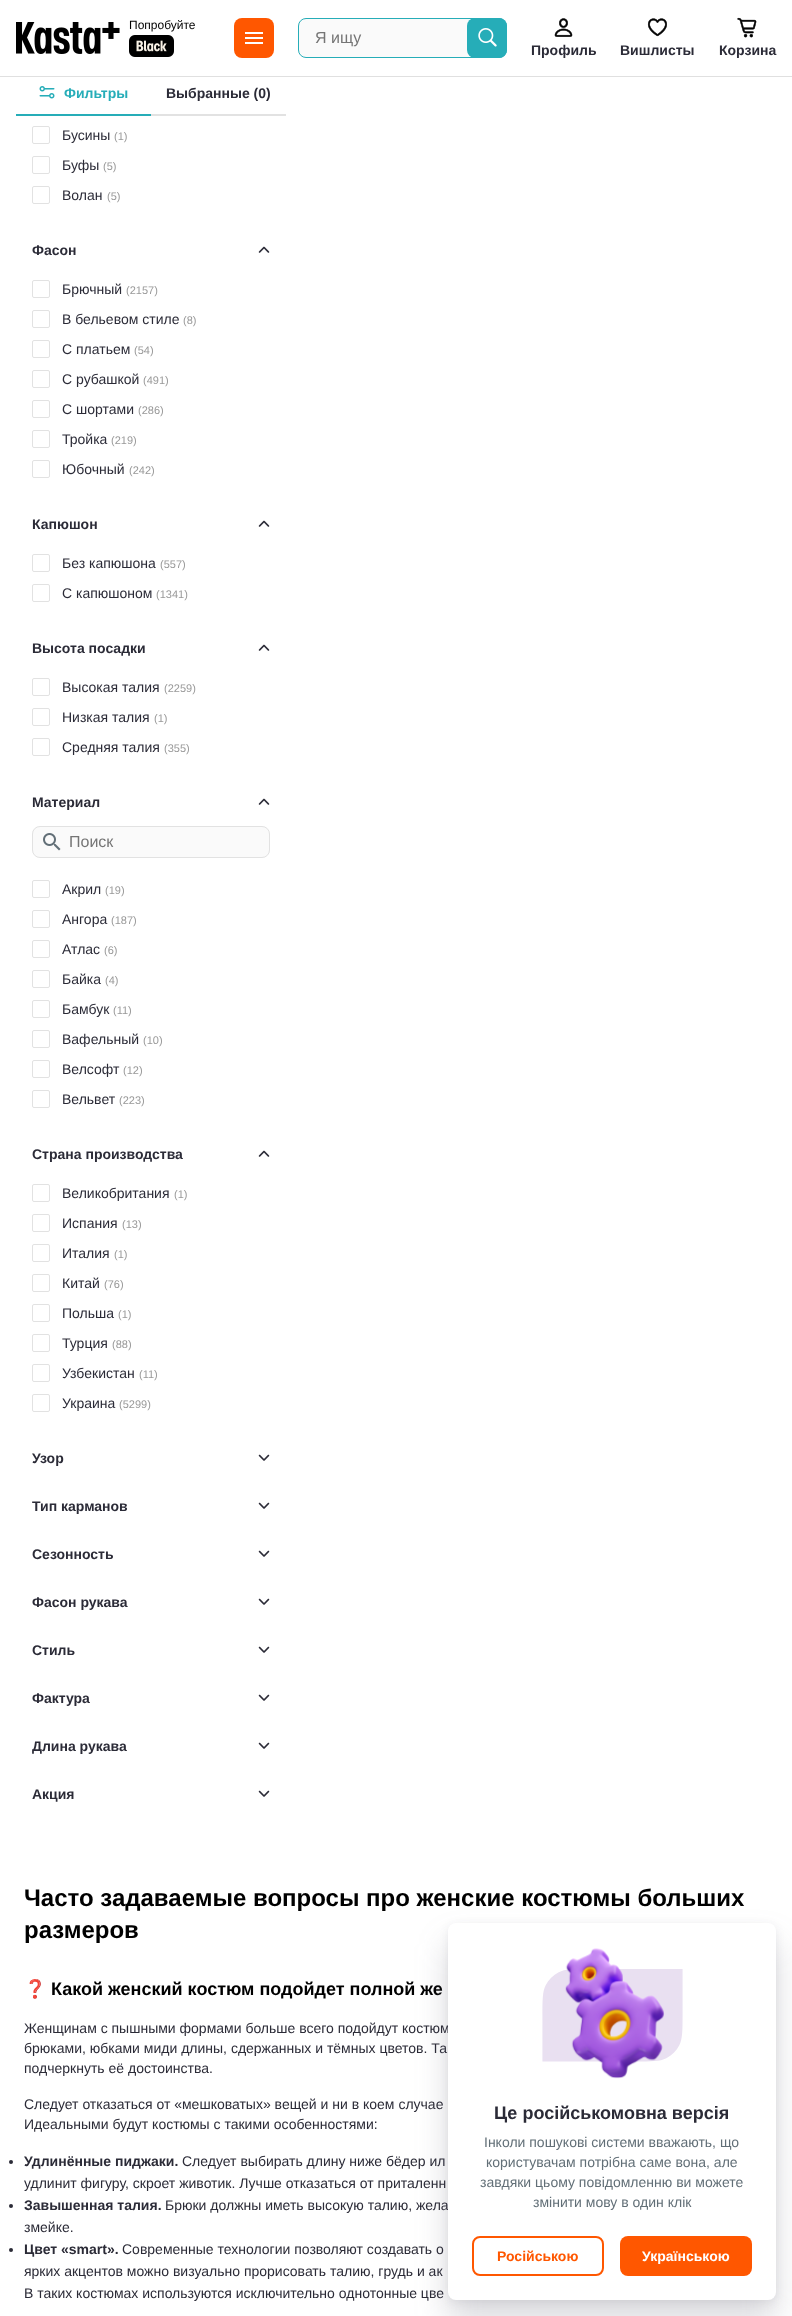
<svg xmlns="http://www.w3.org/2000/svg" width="792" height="2316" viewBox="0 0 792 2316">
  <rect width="100%" height="100%" fill="rgb(255,255,255)"/>
  <rect x="0" y="76" width="792" height="1" fill="rgba(0,0,0,0.12)" filter="blur(0.5px)"/>
  <rect x="0" y="75" width="792" height="1" fill="rgb(255,255,255)"/>
  <image x="16" y="22" width="104" height="32" href="pic1.png"/>
  <text x="129" y="29" font-family="Liberation Sans" font-size="12" fill="rgb(0,0,0)">Попробуйте</text>
  <image x="129" y="35" width="45" height="22" href="pic2.png"/>
  <rect x="234" y="18" width="40" height="40" rx="8" fill="rgb(255,87,0)"/>
  <image x="245" y="32" width="18" height="12" href="pic3.png"/>
  <rect x="298.5" y="18.5" width="208" height="39" rx="7.5" fill="rgb(250,250,250)" stroke="rgb(38,173,184)"/>
  <text x="315" y="43" font-family="Liberation Sans" font-size="16" fill="rgb(117,117,117)">Я ищу</text>
  <rect x="467" y="18" width="40" height="40" rx="8" fill="rgb(38,173,184)"/>
  <image x="478" y="28" width="19" height="19" href="pic4.png"/>
  <image x="554" y="18" width="19" height="19" href="pic5.png"/>
  <text x="531" y="55" font-family="Liberation Sans" font-size="14" font-weight="bold" fill="rgb(43,43,55)">Профиль</text>
  <image x="647" y="18" width="20" height="19" href="pic6.png"/>
  <text x="620" y="55" font-family="Liberation Sans" font-size="14" font-weight="bold" fill="rgb(43,43,55)">Вишлисты</text>
  <image x="737" y="17" width="20" height="21" href="pic7.png"/>
  <text x="719" y="55" font-family="Liberation Sans" font-size="14" font-weight="bold" fill="rgb(43,43,55)">Корзина</text>
  <rect x="16" y="114" width="135" height="2" fill="rgb(38,173,184)"/>
  <image x="39" y="86" width="16" height="13" href="pic8.png"/>
  <text x="64" y="98" font-family="Liberation Sans" font-size="14" font-weight="bold" fill="rgb(38,173,184)">Фильтры</text>
  <rect x="151" y="114" width="135" height="2" fill="rgb(226,226,226)"/>
  <text x="166" y="98" font-family="Liberation Sans" font-size="14" font-weight="bold" fill="rgb(43,43,55)">Выбранные (0)</text>
  <rect x="32.5" y="126.5" width="17" height="17" rx="1.5" fill="none" stroke="rgb(226,226,226)"/>
  <text x="62" y="140" font-family="Liberation Sans" font-size="14" fill="rgb(43,43,55)">Бусины</text>
  <text x="114" y="140" font-family="Liberation Sans" font-size="11" fill="rgb(153,153,153)">(1)</text>
  <rect x="32.5" y="156.5" width="17" height="17" rx="1.5" fill="none" stroke="rgb(226,226,226)"/>
  <text x="62" y="170" font-family="Liberation Sans" font-size="14" fill="rgb(43,43,55)">Буфы</text>
  <text x="103" y="170" font-family="Liberation Sans" font-size="11" fill="rgb(153,153,153)">(5)</text>
  <rect x="32.5" y="186.5" width="17" height="17" rx="1.5" fill="none" stroke="rgb(226,226,226)"/>
  <text x="62" y="200" font-family="Liberation Sans" font-size="14" fill="rgb(43,43,55)">Волан</text>
  <text x="107" y="200" font-family="Liberation Sans" font-size="11" fill="rgb(153,153,153)">(5)</text>
  <text x="32" y="255" font-family="Liberation Sans" font-size="14" font-weight="bold" fill="rgb(43,43,55)">Фасон</text>
  <image x="258" y="246" width="12" height="7" href="pic9.png"/>
  <rect x="32.5" y="280.5" width="17" height="17" rx="1.5" fill="none" stroke="rgb(226,226,226)"/>
  <text x="62" y="294" font-family="Liberation Sans" font-size="14" fill="rgb(43,43,55)">Брючный</text>
  <text x="126" y="294" font-family="Liberation Sans" font-size="11" fill="rgb(153,153,153)">(2157)</text>
  <rect x="32.5" y="310.5" width="17" height="17" rx="1.5" fill="none" stroke="rgb(226,226,226)"/>
  <text x="62" y="324" font-family="Liberation Sans" font-size="14" fill="rgb(43,43,55)">В бельевом стиле</text>
  <text x="183" y="324" font-family="Liberation Sans" font-size="11" fill="rgb(153,153,153)">(8)</text>
  <rect x="32.5" y="340.5" width="17" height="17" rx="1.5" fill="none" stroke="rgb(226,226,226)"/>
  <text x="62" y="354" font-family="Liberation Sans" font-size="14" fill="rgb(43,43,55)">С платьем</text>
  <text x="134" y="354" font-family="Liberation Sans" font-size="11" fill="rgb(153,153,153)">(54)</text>
  <rect x="32.5" y="370.5" width="17" height="17" rx="1.5" fill="none" stroke="rgb(226,226,226)"/>
  <text x="62" y="384" font-family="Liberation Sans" font-size="14" fill="rgb(43,43,55)">С рубашкой</text>
  <text x="143" y="384" font-family="Liberation Sans" font-size="11" fill="rgb(153,153,153)">(491)</text>
  <rect x="32.5" y="400.5" width="17" height="17" rx="1.5" fill="none" stroke="rgb(226,226,226)"/>
  <text x="62" y="414" font-family="Liberation Sans" font-size="14" fill="rgb(43,43,55)">С шортами</text>
  <text x="138" y="414" font-family="Liberation Sans" font-size="11" fill="rgb(153,153,153)">(286)</text>
  <rect x="32.5" y="430.5" width="17" height="17" rx="1.5" fill="none" stroke="rgb(226,226,226)"/>
  <text x="62" y="444" font-family="Liberation Sans" font-size="14" fill="rgb(43,43,55)">Тройка</text>
  <text x="111" y="444" font-family="Liberation Sans" font-size="11" fill="rgb(153,153,153)">(219)</text>
  <rect x="32.5" y="460.5" width="17" height="17" rx="1.5" fill="none" stroke="rgb(226,226,226)"/>
  <text x="62" y="474" font-family="Liberation Sans" font-size="14" fill="rgb(43,43,55)">Юбочный</text>
  <text x="129" y="474" font-family="Liberation Sans" font-size="11" fill="rgb(153,153,153)">(242)</text>
  <text x="32" y="529" font-family="Liberation Sans" font-size="14" font-weight="bold" fill="rgb(43,43,55)">Капюшон</text>
  <image x="258" y="520" width="12" height="7" href="pic9.png"/>
  <rect x="32.5" y="554.5" width="17" height="17" rx="1.5" fill="none" stroke="rgb(226,226,226)"/>
  <text x="62" y="568" font-family="Liberation Sans" font-size="14" fill="rgb(43,43,55)">Без капюшона</text>
  <text x="160" y="568" font-family="Liberation Sans" font-size="11" fill="rgb(153,153,153)">(557)</text>
  <rect x="32.5" y="584.5" width="17" height="17" rx="1.5" fill="none" stroke="rgb(226,226,226)"/>
  <text x="62" y="598" font-family="Liberation Sans" font-size="14" fill="rgb(43,43,55)">С капюшоном</text>
  <text x="156" y="598" font-family="Liberation Sans" font-size="11" fill="rgb(153,153,153)">(1341)</text>
  <text x="32" y="653" font-family="Liberation Sans" font-size="14" font-weight="bold" fill="rgb(43,43,55)">Высота посадки</text>
  <image x="258" y="644" width="12" height="7" href="pic9.png"/>
  <rect x="32.5" y="678.5" width="17" height="17" rx="1.5" fill="none" stroke="rgb(226,226,226)"/>
  <text x="62" y="692" font-family="Liberation Sans" font-size="14" fill="rgb(43,43,55)">Высокая талия</text>
  <text x="164" y="692" font-family="Liberation Sans" font-size="11" fill="rgb(153,153,153)">(2259)</text>
  <rect x="32.5" y="708.5" width="17" height="17" rx="1.5" fill="none" stroke="rgb(226,226,226)"/>
  <text x="62" y="722" font-family="Liberation Sans" font-size="14" fill="rgb(43,43,55)">Низкая талия</text>
  <text x="154" y="722" font-family="Liberation Sans" font-size="11" fill="rgb(153,153,153)">(1)</text>
  <rect x="32.5" y="738.5" width="17" height="17" rx="1.5" fill="none" stroke="rgb(226,226,226)"/>
  <text x="62" y="752" font-family="Liberation Sans" font-size="14" fill="rgb(43,43,55)">Средняя талия</text>
  <text x="164" y="752" font-family="Liberation Sans" font-size="11" fill="rgb(153,153,153)">(355)</text>
  <text x="32" y="807" font-family="Liberation Sans" font-size="14" font-weight="bold" fill="rgb(43,43,55)">Материал</text>
  <image x="258" y="798" width="12" height="7" href="pic9.png"/>
  <rect x="32" y="826" width="238" height="32" rx="8" fill="rgb(250,250,250)"/>
  <image x="43" y="833" width="18" height="18" href="pic10.png"/>
  <rect x="32.5" y="826.5" width="237" height="31" rx="7.5" fill="none" stroke="rgb(226,226,226)"/>
  <text x="69" y="847" font-family="Liberation Sans" font-size="16" fill="rgb(117,117,117)">Поиск</text>
  <rect x="32.5" y="880.5" width="17" height="17" rx="1.5" fill="none" stroke="rgb(226,226,226)"/>
  <text x="62" y="894" font-family="Liberation Sans" font-size="14" fill="rgb(43,43,55)">Акрил</text>
  <text x="105" y="894" font-family="Liberation Sans" font-size="11" fill="rgb(153,153,153)">(19)</text>
  <rect x="32.5" y="910.5" width="17" height="17" rx="1.5" fill="none" stroke="rgb(226,226,226)"/>
  <text x="62" y="924" font-family="Liberation Sans" font-size="14" fill="rgb(43,43,55)">Ангора</text>
  <text x="111" y="924" font-family="Liberation Sans" font-size="11" fill="rgb(153,153,153)">(187)</text>
  <rect x="32.5" y="940.5" width="17" height="17" rx="1.5" fill="none" stroke="rgb(226,226,226)"/>
  <text x="62" y="954" font-family="Liberation Sans" font-size="14" fill="rgb(43,43,55)">Атлас</text>
  <text x="104" y="954" font-family="Liberation Sans" font-size="11" fill="rgb(153,153,153)">(6)</text>
  <rect x="32.5" y="970.5" width="17" height="17" rx="1.5" fill="none" stroke="rgb(226,226,226)"/>
  <text x="62" y="984" font-family="Liberation Sans" font-size="14" fill="rgb(43,43,55)">Байка</text>
  <text x="105" y="984" font-family="Liberation Sans" font-size="11" fill="rgb(153,153,153)">(4)</text>
  <rect x="32.5" y="1000.5" width="17" height="17" rx="1.5" fill="none" stroke="rgb(226,226,226)"/>
  <text x="62" y="1014" font-family="Liberation Sans" font-size="14" fill="rgb(43,43,55)">Бамбук</text>
  <text x="113" y="1014" font-family="Liberation Sans" font-size="11" fill="rgb(153,153,153)">(11)</text>
  <rect x="32.5" y="1030.5" width="17" height="17" rx="1.5" fill="none" stroke="rgb(226,226,226)"/>
  <text x="62" y="1044" font-family="Liberation Sans" font-size="14" fill="rgb(43,43,55)">Вафельный</text>
  <text x="143" y="1044" font-family="Liberation Sans" font-size="11" fill="rgb(153,153,153)">(10)</text>
  <rect x="32.5" y="1060.5" width="17" height="17" rx="1.5" fill="none" stroke="rgb(226,226,226)"/>
  <text x="62" y="1074" font-family="Liberation Sans" font-size="14" fill="rgb(43,43,55)">Велсофт</text>
  <text x="123" y="1074" font-family="Liberation Sans" font-size="11" fill="rgb(153,153,153)">(12)</text>
  <rect x="32.5" y="1090.5" width="17" height="17" rx="1.5" fill="none" stroke="rgb(226,226,226)"/>
  <text x="62" y="1104" font-family="Liberation Sans" font-size="14" fill="rgb(43,43,55)">Вельвет</text>
  <text x="119" y="1104" font-family="Liberation Sans" font-size="11" fill="rgb(153,153,153)">(223)</text>
  <text x="32" y="1159" font-family="Liberation Sans" font-size="14" font-weight="bold" fill="rgb(43,43,55)">Страна производства</text>
  <image x="258" y="1150" width="12" height="7" href="pic9.png"/>
  <rect x="32.5" y="1184.5" width="17" height="17" rx="1.5" fill="none" stroke="rgb(226,226,226)"/>
  <text x="62" y="1198" font-family="Liberation Sans" font-size="14" fill="rgb(43,43,55)">Великобритания</text>
  <text x="174" y="1198" font-family="Liberation Sans" font-size="11" fill="rgb(153,153,153)">(1)</text>
  <rect x="32.5" y="1214.5" width="17" height="17" rx="1.5" fill="none" stroke="rgb(226,226,226)"/>
  <text x="62" y="1228" font-family="Liberation Sans" font-size="14" fill="rgb(43,43,55)">Испания</text>
  <text x="122" y="1228" font-family="Liberation Sans" font-size="11" fill="rgb(153,153,153)">(13)</text>
  <rect x="32.5" y="1244.5" width="17" height="17" rx="1.5" fill="none" stroke="rgb(226,226,226)"/>
  <text x="62" y="1258" font-family="Liberation Sans" font-size="14" fill="rgb(43,43,55)">Италия</text>
  <text x="114" y="1258" font-family="Liberation Sans" font-size="11" fill="rgb(153,153,153)">(1)</text>
  <rect x="32.5" y="1274.5" width="17" height="17" rx="1.5" fill="none" stroke="rgb(226,226,226)"/>
  <text x="62" y="1288" font-family="Liberation Sans" font-size="14" fill="rgb(43,43,55)">Китай</text>
  <text x="104" y="1288" font-family="Liberation Sans" font-size="11" fill="rgb(153,153,153)">(76)</text>
  <rect x="32.5" y="1304.5" width="17" height="17" rx="1.5" fill="none" stroke="rgb(226,226,226)"/>
  <text x="62" y="1318" font-family="Liberation Sans" font-size="14" fill="rgb(43,43,55)">Польша</text>
  <text x="118" y="1318" font-family="Liberation Sans" font-size="11" fill="rgb(153,153,153)">(1)</text>
  <rect x="32.5" y="1334.5" width="17" height="17" rx="1.5" fill="none" stroke="rgb(226,226,226)"/>
  <text x="62" y="1348" font-family="Liberation Sans" font-size="14" fill="rgb(43,43,55)">Турция</text>
  <text x="112" y="1348" font-family="Liberation Sans" font-size="11" fill="rgb(153,153,153)">(88)</text>
  <rect x="32.5" y="1364.5" width="17" height="17" rx="1.5" fill="none" stroke="rgb(226,226,226)"/>
  <text x="62" y="1378" font-family="Liberation Sans" font-size="14" fill="rgb(43,43,55)">Узбекистан</text>
  <text x="139" y="1378" font-family="Liberation Sans" font-size="11" fill="rgb(153,153,153)">(11)</text>
  <rect x="32.5" y="1394.5" width="17" height="17" rx="1.5" fill="none" stroke="rgb(226,226,226)"/>
  <text x="62" y="1408" font-family="Liberation Sans" font-size="14" fill="rgb(43,43,55)">Украина</text>
  <text x="119" y="1408" font-family="Liberation Sans" font-size="11" fill="rgb(153,153,153)">(5299)</text>
  <text x="32" y="1463" font-family="Liberation Sans" font-size="14" font-weight="bold" fill="rgb(43,43,55)">Узор</text>
  <image x="258" y="1454" width="12" height="7" href="pic11.png"/>
  <text x="32" y="1511" font-family="Liberation Sans" font-size="14" font-weight="bold" fill="rgb(43,43,55)">Тип карманов</text>
  <image x="258" y="1502" width="12" height="7" href="pic11.png"/>
  <text x="32" y="1559" font-family="Liberation Sans" font-size="14" font-weight="bold" fill="rgb(43,43,55)">Сезонность</text>
  <image x="258" y="1550" width="12" height="7" href="pic11.png"/>
  <text x="32" y="1607" font-family="Liberation Sans" font-size="14" font-weight="bold" fill="rgb(43,43,55)">Фасон рукава</text>
  <image x="258" y="1598" width="12" height="7" href="pic11.png"/>
  <text x="32" y="1655" font-family="Liberation Sans" font-size="14" font-weight="bold" fill="rgb(43,43,55)">Стиль</text>
  <image x="258" y="1646" width="12" height="7" href="pic11.png"/>
  <text x="32" y="1703" font-family="Liberation Sans" font-size="14" font-weight="bold" fill="rgb(43,43,55)">Фактура</text>
  <image x="258" y="1694" width="12" height="7" href="pic11.png"/>
  <text x="32" y="1751" font-family="Liberation Sans" font-size="14" font-weight="bold" fill="rgb(43,43,55)">Длина рукава</text>
  <image x="258" y="1742" width="12" height="7" href="pic11.png"/>
  <text x="32" y="1799" font-family="Liberation Sans" font-size="14" font-weight="bold" fill="rgb(43,43,55)">Акция</text>
  <image x="258" y="1790" width="12" height="7" href="pic11.png"/>
  <g font-family="Liberation Sans" font-size="24" font-weight="bold" fill="rgb(0,0,0)">
    <text>
      <tspan x="24" y="1906">Часто задаваемые вопросы про женские костюмы больших</tspan>
      <tspan x="24" y="1938">размеров</tspan>
    </text>
  </g>
  <text x="24" y="1995" font-family="Noto Color Emoji" font-size="18" font-weight="bold" fill="rgb(0,0,0)">❓</text>
  <text x="51" y="1995" font-family="Liberation Sans" font-size="18" font-weight="bold" fill="rgb(0,0,0)">Какой женский костюм подойдет полной же</text>
  <g font-family="Liberation Sans" font-size="14" fill="rgb(43,43,55)">
    <text>
      <tspan x="24" y="2033">Женщинам с пышными формами больше всего подойдут костюм</tspan>
      <tspan x="24" y="2053">брюками, юбками миди длины, сдержанных и тёмных цветов. Та</tspan>
      <tspan x="24" y="2073">подчеркнуть её достоинства.</tspan>
    </text>
    <text>
      <tspan x="24" y="2109">Следует отказаться от «мешковатых» вещей и ни в коем случае</tspan>
      <tspan x="24" y="2129">Идеальными будут костюмы с такими особенностями:</tspan>
    </text>
  </g>
  <circle cx="11" cy="2162" r="2" fill="rgb(43,43,55)"/>
  <text x="24" y="2166" font-family="Liberation Sans" font-size="14" font-weight="bold" fill="rgb(43,43,55)">Удлинённые пиджаки.</text>
  <g font-family="Liberation Sans" font-size="14" fill="rgb(43,43,55)">
    <text x="182" y="2166">Следует выбирать длину ниже бёдер ил</text>
    <text x="24" y="2188">удлинит фигуру, скроет животик. Лучше отказаться от приталенн</text>
  </g>
  <circle cx="11" cy="2206" r="2" fill="rgb(43,43,55)"/>
  <text x="24" y="2210" font-family="Liberation Sans" font-size="14" font-weight="bold" fill="rgb(43,43,55)">Завышенная талия.</text>
  <g font-family="Liberation Sans" font-size="14" fill="rgb(43,43,55)">
    <text x="165" y="2210">Брюки должны иметь высокую талию, жела</text>
    <text x="24" y="2232">змейке.</text>
  </g>
  <circle cx="11" cy="2250" r="2" fill="rgb(43,43,55)"/>
  <text x="24" y="2254" font-family="Liberation Sans" font-size="14" font-weight="bold" fill="rgb(43,43,55)">Цвет «smart».</text>
  <g font-family="Liberation Sans" font-size="14" fill="rgb(43,43,55)">
    <text x="122" y="2254">Современные технологии позволяют создавать о</text>
    <text>
      <tspan x="24" y="2276">ярких акцентов можно визуально прорисовать талию, грудь и ак</tspan>
      <tspan x="24" y="2298">В таких костюмах используются исключительно однотонные цве</tspan>
    </text>
  </g>
  <rect x="448" y="1925" width="328" height="377" rx="8" fill="rgba(40,41,61,0.08)" filter="blur(4px)"/>
  <rect x="448" y="1943" width="328" height="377" rx="8" fill="rgba(96,97,112,0.24)" filter="blur(16px)"/>
  <rect x="448" y="1923" width="328" height="377" rx="8" fill="rgb(255,255,255)"/>
  <image x="542" y="1948" width="141" height="131" href="pic12.png"/>
  <text x="494" y="2119" font-family="Liberation Sans" font-size="18" font-weight="bold" fill="rgb(43,43,55)">Це російськомовна версія</text>
  <g font-family="Liberation Sans" font-size="14" fill="rgb(98,111,119)">
    <text x="484" y="2147">Інколи пошукові системи вважають, що</text>
    <text x="486" y="2167">користувачам потрібна саме вона, але</text>
    <text x="480" y="2187">завдяки цьому повідомленню ви можете</text>
    <text x="533" y="2207">змінити мову в один клік</text>
  </g>
  <rect x="473" y="2237" width="130" height="38" rx="7" fill="none" stroke="rgb(255,87,0)" stroke-width="2"/>
  <text x="497" y="2261" font-family="Liberation Sans" font-size="14" font-weight="bold" fill="rgb(255,87,0)">Російською</text>
  <rect x="620" y="2236" width="132" height="40" rx="8" fill="rgb(255,87,0)"/>
  <text x="642" y="2261" font-family="Liberation Sans" font-size="14" font-weight="bold" fill="rgb(255,255,255)">Українською</text>
</svg>
